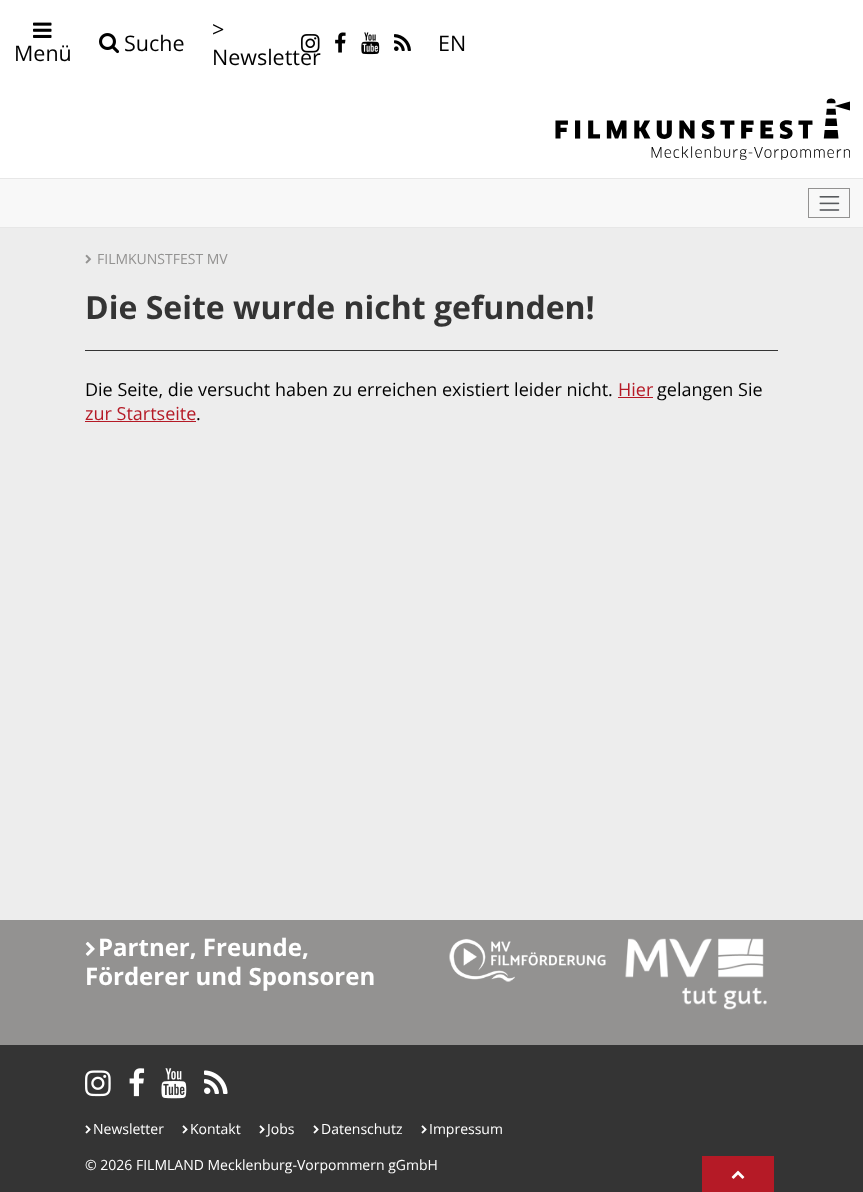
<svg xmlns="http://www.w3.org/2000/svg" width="863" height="1192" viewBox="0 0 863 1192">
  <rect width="100%" height="100%" fill="rgb(255,255,255)"/>
  <image x="33" y="22" width="19" height="16" href="pic1.png"/>
  <text x="14" y="61" font-family="Open Sans" font-size="21.5" fill="rgb(0,0,0)">Menü</text>
  <image x="99" y="33" width="20" height="21" href="pic2.png"/>
  <g font-family="Open Sans" font-size="21.5" fill="rgb(0,0,0)">
    <text x="124" y="51">Suche</text>
    <text>
      <tspan x="212" y="37">&gt;</tspan>
      <tspan x="212" y="65">Newsletter</tspan>
    </text>
  </g>
  <image x="301" y="34" width="19" height="19" href="pic3.png"/>
  <image x="335" y="32" width="11" height="21" href="pic4.png"/>
  <image x="361" y="32" width="19" height="23" href="pic5.png"/>
  <image x="394" y="34" width="17" height="17" href="pic6.png"/>
  <text x="438" y="51" font-family="Open Sans" font-size="21.5" fill="rgb(0,0,0)">EN</text>
  <image x="555" y="98" width="295" height="62" href="pic7.png"/>
  <rect x="0" y="179" width="863" height="48" fill="rgb(248,248,248)"/>
  <rect x="0" y="178" width="863" height="1" fill="rgb(231,231,231)"/>
  <rect x="0" y="227" width="863" height="1" fill="rgb(231,231,231)"/>
  <rect x="808.5" y="188.5" width="41" height="29" fill="none" stroke="rgb(147,146,145)"/>
  <image x="819" y="196" width="21" height="15" href="pic8.png"/>
  <rect x="0" y="228" width="863" height="692" fill="rgb(237,237,237)"/>
  <image x="85" y="254" width="7" height="10" href="pic9.png"/>
  <text x="97" y="264" font-family="Open Sans" font-size="14" fill="rgb(147,146,145)">FILMKUNSTFEST MV</text>
  <rect x="85" y="350" width="693" height="1" fill="rgb(52,52,52)"/>
  <text x="85" y="319" font-family="Open Sans" font-size="32" font-weight="bold" fill="rgb(52,52,52)">Die Seite wurde nicht gefunden!</text>
  <text x="85" y="396" font-family="Open Sans" font-size="18" fill="rgb(0,0,0)">Die Seite, die versucht haben zu erreichen existiert leider nicht.</text>
  <text x="618" y="396" font-family="Open Sans" font-size="18" fill="rgb(181,26,38)">Hier</text>
  <rect x="618" y="397" width="35" height="1" fill="rgb(181,26,38)"/>
  <text x="657" y="396" font-family="Open Sans" font-size="18" fill="rgb(0,0,0)">gelangen Sie</text>
  <text x="85" y="420" font-family="Open Sans" font-size="18" fill="rgb(181,26,38)">zur Startseite</text>
  <rect x="85" y="421" width="111" height="1" fill="rgb(181,26,38)"/>
  <text x="196" y="420" font-family="Open Sans" font-size="18" fill="rgb(0,0,0)">.</text>
  <rect x="0" y="920" width="863" height="125" fill="rgb(147,146,145)"/>
  <image x="85" y="941" width="10" height="15" href="pic10.png"/>
  <g font-family="Open Sans" font-size="24" font-weight="bold" fill="rgb(255,255,255)">
    <text x="98" y="956">Partner, Freunde,</text>
    <text x="85" y="985">Förderer und Sponsoren</text>
  </g>
  <image x="449" y="938" width="157" height="44" href="pic11.png"/>
  <image x="625" y="938" width="142" height="72" href="pic12.png"/>
  <rect x="0" y="1045" width="863" height="147" fill="rgb(52,52,52)"/>
  <image x="85" y="1070" width="26" height="27" href="pic13.png"/>
  <image x="129" y="1068" width="16" height="29" href="pic14.png"/>
  <image x="161" y="1068" width="26" height="31" href="pic15.png"/>
  <image x="204" y="1070" width="24" height="24" href="pic16.png"/>
  <image x="85" y="1125" width="6" height="9" href="pic17.png"/>
  <text x="93" y="1134" font-family="Open Sans" font-size="14" fill="rgb(255,255,255)">Newsletter</text>
  <image x="182" y="1125" width="6" height="9" href="pic17.png"/>
  <text x="190" y="1134" font-family="Open Sans" font-size="14" fill="rgb(255,255,255)">Kontakt</text>
  <image x="259" y="1125" width="6" height="9" href="pic17.png"/>
  <text x="267" y="1134" font-family="Open Sans" font-size="14" fill="rgb(255,255,255)">Jobs</text>
  <image x="313" y="1125" width="6" height="9" href="pic17.png"/>
  <text x="321" y="1134" font-family="Open Sans" font-size="14" fill="rgb(255,255,255)">Datenschutz</text>
  <image x="421" y="1125" width="6" height="9" href="pic17.png"/>
  <g font-family="Open Sans" font-size="14" fill="rgb(255,255,255)">
    <text x="429" y="1134">Impressum</text>
    <text x="85" y="1170">© 2026 FILMLAND Mecklenburg-Vorpommern gGmbH</text>
  </g>
  <rect x="702" y="1156" width="72" height="36" fill="rgb(181,26,38)"/>
  <image x="731" y="1170" width="14" height="9" href="pic18.png"/>
</svg>
